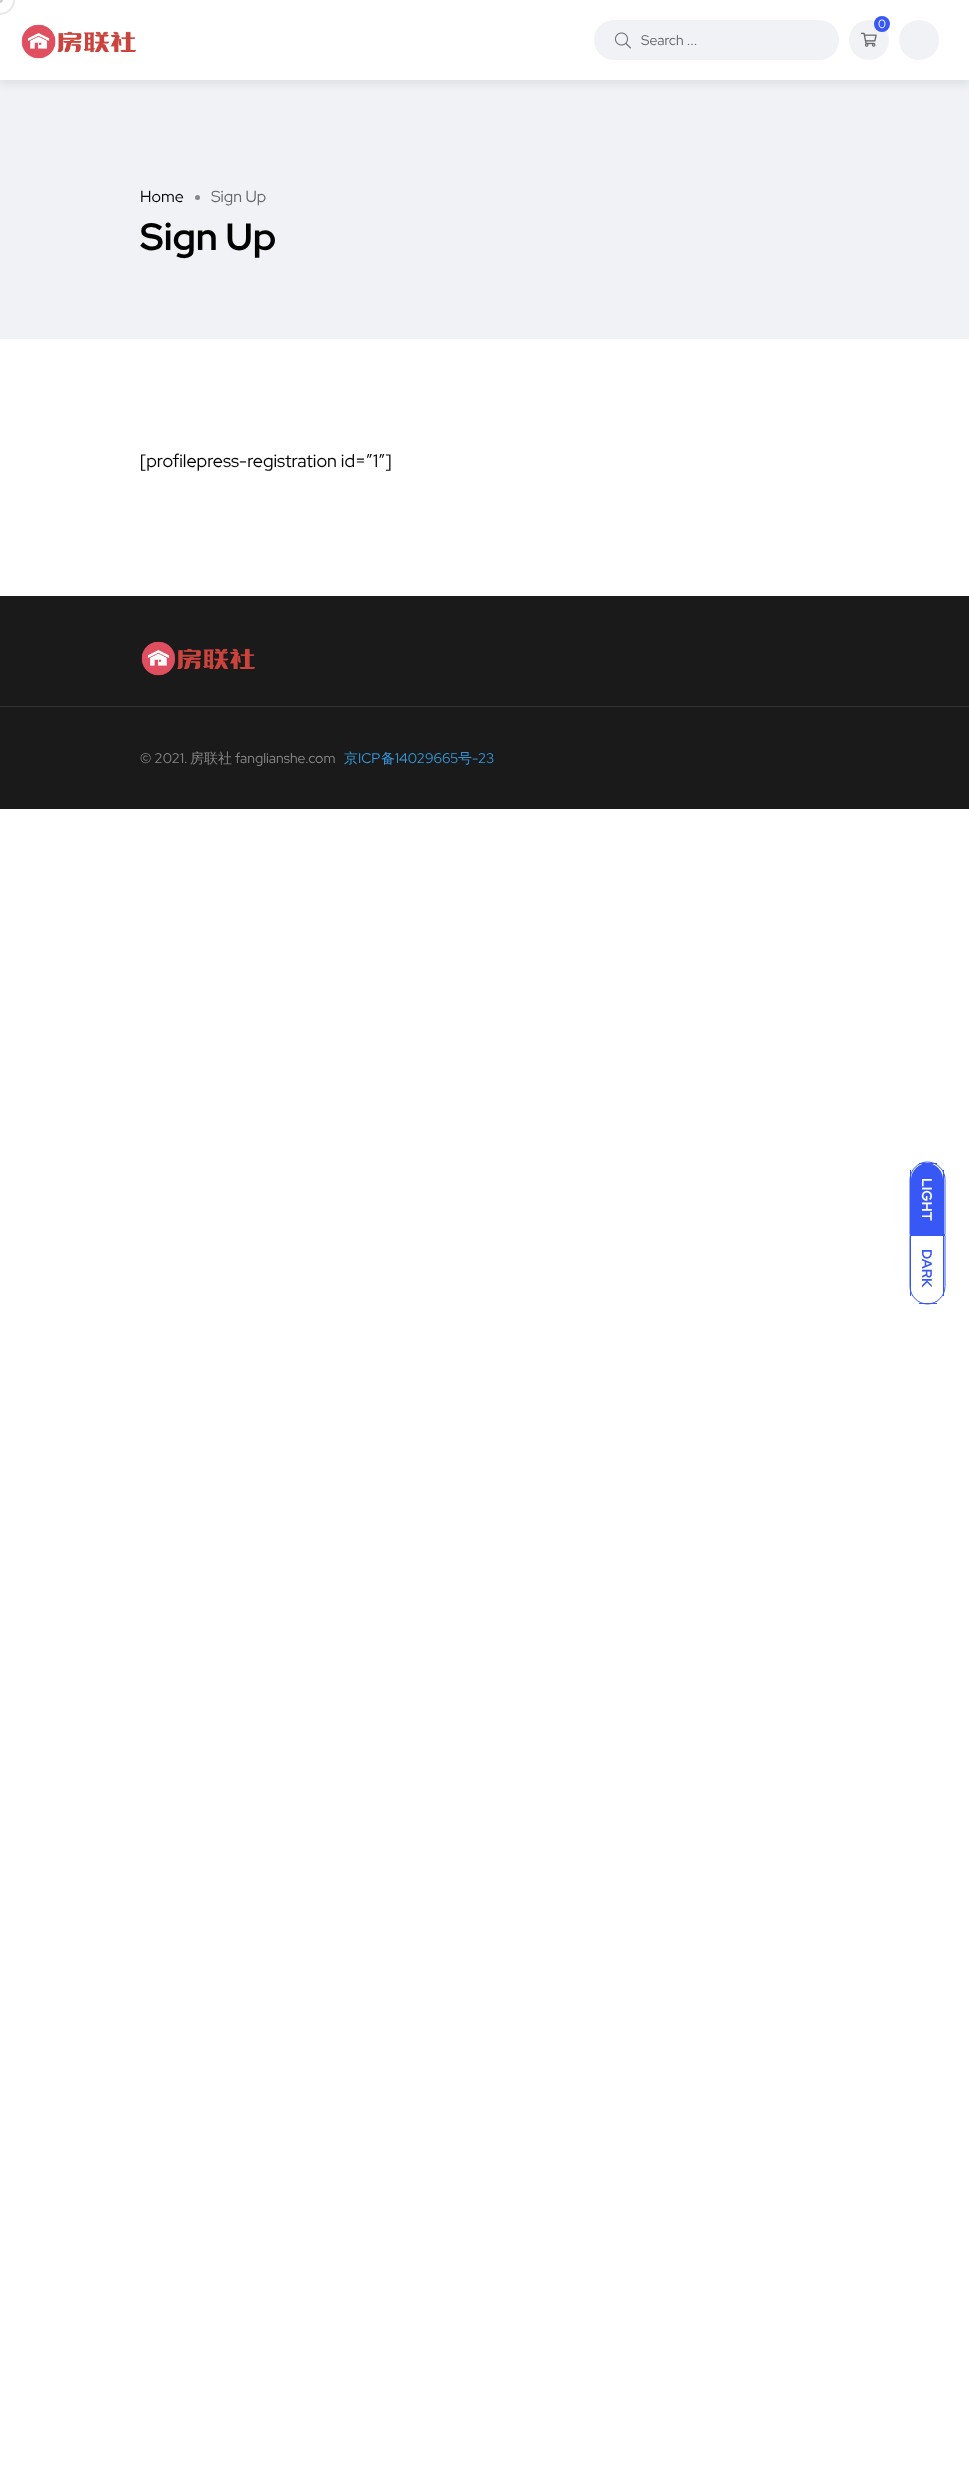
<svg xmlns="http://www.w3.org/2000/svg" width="969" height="2466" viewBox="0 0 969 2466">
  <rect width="100%" height="100%" fill="rgb(255,255,255)"/>
  <rect x="0" y="80" width="969" height="259" fill="rgb(240,242,245)"/>
  <rect x="0" y="4" width="969" height="80" fill="rgba(37,47,63,0.1)" filter="blur(5px)"/>
  <rect x="0" y="0" width="969" height="80" fill="rgb(255,255,255)"/>
  <circle cx="0" cy="0" r="14" fill="none" stroke="rgb(231,232,234)" stroke-width="2"/>
  <circle cx="0" cy="0" r="3" fill="rgb(206,208,212)"/>
  <image x="21" y="24" width="115" height="35" href="pic1.png"/>
  <circle cx="869" cy="40" r="20" fill="rgb(240,242,245)"/>
  <circle cx="882" cy="24" r="8" fill="rgb(56,88,246)"/>
  <text x="878" y="28" font-family="Red Hat Display" font-size="12" fill="rgb(255,255,255)">0</text>
  <image x="861" y="32" width="16" height="15" href="pic2.png"/>
  <rect x="594" y="20" width="245" height="40" rx="20" fill="rgb(240,242,245)"/>
  <image x="615" y="32" width="16" height="17" href="pic3.png"/>
  <text x="641" y="45" font-family="Red Hat Display" font-size="14" fill="rgb(101,103,107)">Search ...</text>
  <circle cx="919" cy="40" r="20" fill="rgb(240,242,245)"/>
  <text x="140" y="202" font-family="Red Hat Display" font-size="16" fill="rgb(0,0,0)">Home</text>
  <circle cx="197.5" cy="197.5" r="2.5" fill="rgb(135,135,135)"/>
  <text x="211" y="202" font-family="Red Hat Display" font-size="16" fill="rgb(101,103,107)">Sign Up</text>
  <text x="140" y="250" font-family="Red Hat Display" font-size="38" font-weight="bold" fill="rgb(0,0,0)">Sign Up</text>
  <text x="140" y="467" font-family="Red Hat Display" font-size="18" fill="rgb(0,0,0)">[profilepress-registration id=”1″]</text>
  <rect x="0" y="596" width="969" height="213" fill="rgb(26,26,26)"/>
  <image x="141" y="641" width="114" height="35" href="pic4.png"/>
  <rect x="0" y="706" width="969" height="1" fill="rgb(51,51,51)"/>
  <text x="140" y="763" font-family="Red Hat Display" font-size="14" fill="rgb(135,135,135)">© 2021.</text>
  <text x="190" y="763" font-family="WenQuanYi Zen Hei" font-size="14" font-weight="500" fill="rgb(135,135,135)">房联社</text>
  <text x="235" y="763" font-family="Red Hat Display" font-size="14" fill="rgb(135,135,135)">fanglianshe.com</text>
  <text x="344" y="763" font-family="WenQuanYi Zen Hei" font-size="14" font-weight="500" fill="rgb(52,152,219)">京</text>
  <text x="358" y="763" font-family="Red Hat Display" font-size="14" fill="rgb(52,152,219)">ICP</text>
  <text x="381" y="763" font-family="WenQuanYi Zen Hei" font-size="14" font-weight="500" fill="rgb(52,152,219)">备</text>
  <text x="395" y="763" font-family="Red Hat Display" font-size="14" fill="rgb(52,152,219)">14029665</text>
  <text x="458" y="763" font-family="WenQuanYi Zen Hei" font-size="14" font-weight="500" fill="rgb(52,152,219)">号</text>
  <text x="472" y="763" font-family="Red Hat Display" font-size="14" fill="rgb(52,152,219)">-23</text>
  <path d="M943 1179V1234H911V1179C911 1171 919 1163 927 1163C936 1163 943 1171 943 1179Z" fill="rgb(56,88,246)"/>
  <path d="M945 1179.5V1234.5H910V1179.5C910 1170 918 1162 927.5 1162C937 1162 945 1170 945 1179.5Z" fill="none" stroke="rgb(56,88,246)"/>
  <rect x="943" y="1170" width="1" height="65" fill="rgb(56,88,246)"/>
  <rect x="910" y="1170" width="1" height="65" fill="rgb(56,88,246)"/>
  <rect x="919" y="1163" width="18" height="1" fill="rgb(56,88,246)"/>
  <text x="922" y="1178" transform="rotate(90 922 1178)" font-family="Red Hat Display" font-size="14" font-weight="bold" fill="rgb(255,255,255)">LIGHT</text>
  <path d="M945 1235.5V1286.5C945 1296 937 1304 927.5 1304C918 1304 910 1296 910 1286.5V1235.5Z" fill="none" stroke="rgb(56,88,246)"/>
  <rect x="943" y="1235" width="1" height="61" fill="rgb(56,88,246)"/>
  <rect x="919" y="1303" width="18" height="1" fill="rgb(56,88,246)"/>
  <rect x="910" y="1235" width="1" height="61" fill="rgb(56,88,246)"/>
  <text x="922" y="1249" transform="rotate(90 922 1249)" font-family="Red Hat Display" font-size="14" font-weight="bold" fill="rgb(56,88,246)">DARK</text>
</svg>
